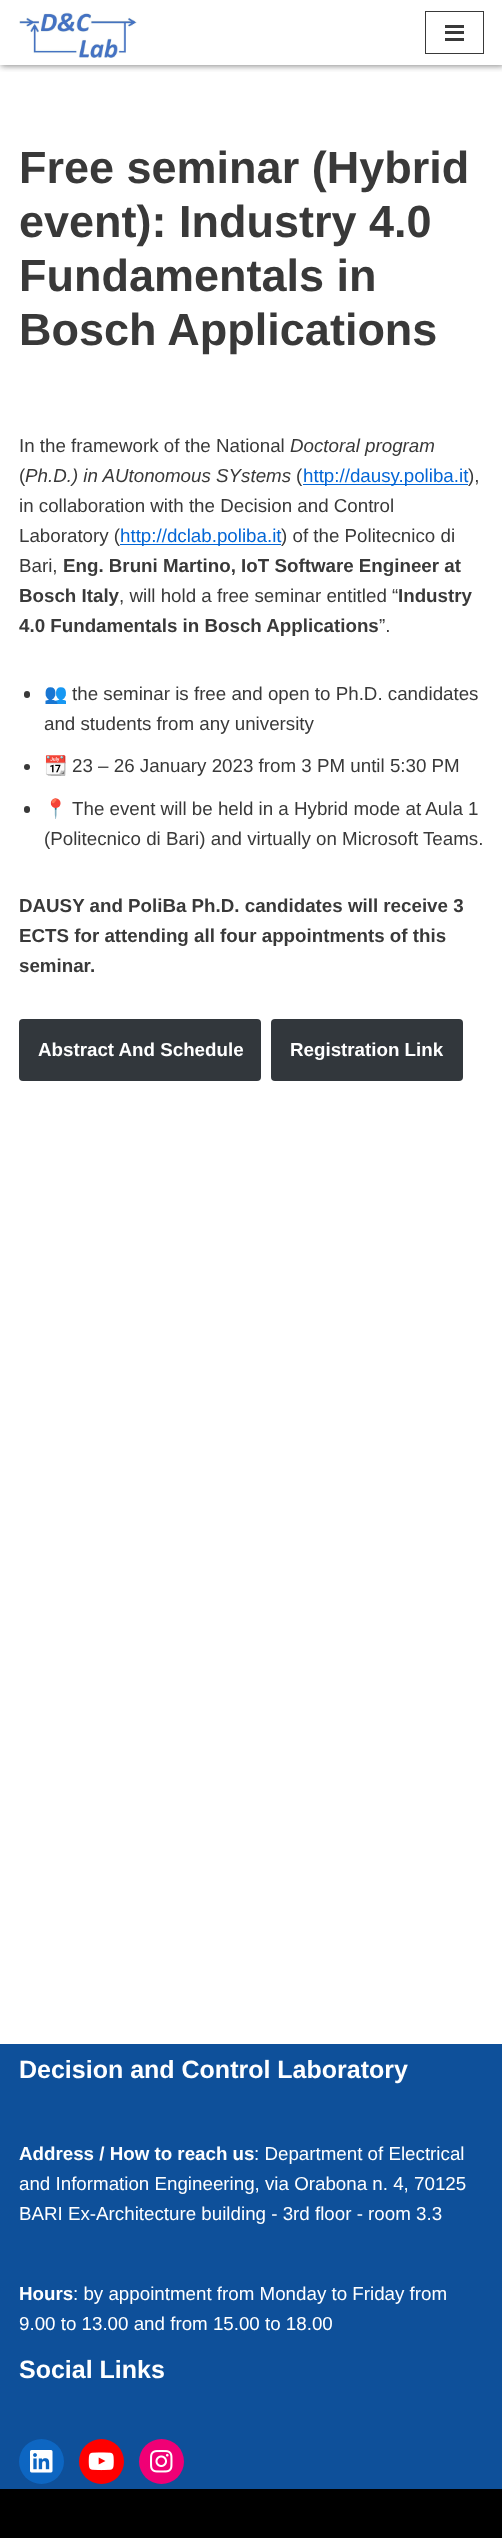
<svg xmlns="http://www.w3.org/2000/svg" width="502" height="2538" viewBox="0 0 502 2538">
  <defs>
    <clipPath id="clip1"><rect x="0" y="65" width="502" height="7"/></clipPath>
  </defs>
  <rect width="100%" height="100%" fill="rgb(255,255,255)"/>
  <g clip-path="url(#clip1)">
    <rect x="1" y="1" width="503" height="65" fill="rgb(136,136,136)" filter="blur(3px)"/>
  </g>
  <image x="19" y="12" width="118" height="46" href="pic1.png"/>
  <rect x="425.5" y="11.5" width="58" height="42" fill="none" stroke="rgb(57,57,57)"/>
  <rect x="445" y="25" width="19" height="3" fill="rgb(57,57,57)"/>
  <rect x="445" y="31" width="19" height="3" fill="rgb(57,57,57)"/>
  <rect x="445" y="38" width="19" height="3" fill="rgb(57,57,57)"/>
  <g font-family="Liberation Sans" font-size="45" font-weight="bold" fill="rgb(57,57,57)">
    <text>
      <tspan x="19" y="183">Free seminar (Hybrid</tspan>
      <tspan x="19" y="237">event): Industry 4.0</tspan>
      <tspan x="19" y="291">Fundamentals in</tspan>
      <tspan x="19" y="345">Bosch Applications</tspan>
    </text>
  </g>
  <text x="19" y="452" font-family="Liberation Sans" font-size="18.75" fill="rgb(57,57,57)">In the framework of the National</text>
  <text x="290" y="452" font-family="Liberation Sans" font-size="18.75" font-style="italic" fill="rgb(57,57,57)">Doctoral program</text>
  <text x="19" y="482" font-family="Liberation Sans" font-size="18.75" fill="rgb(57,57,57)">(</text>
  <text x="25" y="482" font-family="Liberation Sans" font-size="18.75" font-style="italic" fill="rgb(57,57,57)">Ph.D.) in AUtonomous SYstems</text>
  <text x="296" y="482" font-family="Liberation Sans" font-size="18.75" fill="rgb(57,57,57)">(</text>
  <rect x="303" y="484" width="165" height="1" fill="rgb(3,102,214)"/>
  <text x="303" y="482" font-family="Liberation Sans" font-size="18.75" fill="rgb(3,102,214)">http://dausy.poliba.it</text>
  <g font-family="Liberation Sans" font-size="18.75" fill="rgb(57,57,57)">
    <text x="468" y="482">),</text>
    <text>
      <tspan x="19" y="512">in collaboration with the Decision and Control</tspan>
      <tspan x="19" y="542">Laboratory (</tspan>
    </text>
  </g>
  <rect x="120" y="544" width="161" height="1" fill="rgb(3,102,214)"/>
  <text x="120" y="542" font-family="Liberation Sans" font-size="18.75" fill="rgb(3,102,214)">http://dclab.poliba.it</text>
  <g font-family="Liberation Sans" font-size="18.75" fill="rgb(57,57,57)">
    <text x="281" y="542">) of the Politecnico di</text>
    <text x="19" y="572">Bari,</text>
  </g>
  <g font-family="Liberation Sans" font-size="18.75" font-weight="bold" fill="rgb(57,57,57)">
    <text x="63" y="572">Eng. Bruni Martino, IoT Software Engineer at</text>
    <text x="19" y="602">Bosch Italy</text>
  </g>
  <text x="119" y="602" font-family="Liberation Sans" font-size="18.75" fill="rgb(57,57,57)">, will hold a free seminar entitled “</text>
  <g font-family="Liberation Sans" font-size="18.75" font-weight="bold" fill="rgb(57,57,57)">
    <text x="398" y="602">Industry</text>
    <text x="19" y="632">4.0 Fundamentals in Bosch Applications</text>
  </g>
  <text x="379" y="632" font-family="Liberation Sans" font-size="18.75" fill="rgb(57,57,57)">”.</text>
  <rect x="24" y="691" width="6" height="7" rx="3" fill="rgb(57,57,57)"/>
  <text x="44" y="700" font-family="Noto Color Emoji" font-size="18.75" fill="rgb(57,57,57)">👥</text>
  <g font-family="Liberation Sans" font-size="18.75" fill="rgb(57,57,57)">
    <text x="72" y="700">the seminar is free and open to Ph.D. candidates</text>
    <text x="44" y="730">and students from any university</text>
  </g>
  <circle cx="27" cy="767" r="3" fill="rgb(57,57,57)"/>
  <text x="44" y="772" font-family="Noto Color Emoji" font-size="18.75" fill="rgb(57,57,57)">📆</text>
  <text x="72" y="772" font-family="Liberation Sans" font-size="18.75" fill="rgb(57,57,57)">23 – 26 January 2023 from 3 PM until 5:30 PM</text>
  <rect x="24" y="806" width="6" height="7" rx="3" fill="rgb(57,57,57)"/>
  <text x="44" y="815" font-family="Noto Color Emoji" font-size="18.75" fill="rgb(57,57,57)">📍</text>
  <g font-family="Liberation Sans" font-size="18.75" fill="rgb(57,57,57)">
    <text x="72" y="815">The event will be held in a Hybrid mode at Aula 1</text>
    <text x="44" y="845">(Politecnico di Bari) and virtually on Microsoft Teams.</text>
  </g>
  <g font-family="Liberation Sans" font-size="18.75" font-weight="bold" fill="rgb(57,57,57)">
    <text>
      <tspan x="19" y="912">DAUSY and PoliBa Ph.D. candidates will receive 3</tspan>
      <tspan x="19" y="942">ECTS for attending all four appointments of this</tspan>
      <tspan x="19" y="972">seminar.</tspan>
    </text>
  </g>
  <rect x="19" y="1019" width="242" height="62" rx="4" fill="rgb(50,55,60)"/>
  <text x="38" y="1056" font-family="Liberation Sans" font-size="18.75" font-weight="bold" fill="rgb(255,255,255)">Abstract And Schedule</text>
  <rect x="271" y="1019" width="192" height="62" rx="4" fill="rgb(50,55,60)"/>
  <text x="290" y="1056" font-family="Liberation Sans" font-size="18.75" font-weight="bold" fill="rgb(255,255,255)">Registration Link</text>
  <rect x="0" y="2044" width="502" height="445" fill="rgb(14,80,154)"/>
  <text x="19" y="2078" font-family="Liberation Sans" font-size="25" font-weight="bold" fill="rgb(255,255,255)">Decision and Control Laboratory</text>
  <text x="19" y="2160" font-family="Liberation Sans" font-size="18.75" font-weight="bold" fill="rgb(255,255,255)">Address / How to reach us</text>
  <g font-family="Liberation Sans" font-size="18.75" fill="rgb(255,255,255)">
    <text x="254" y="2160">: Department of Electrical</text>
    <text>
      <tspan x="19" y="2190">and Information Engineering, via Orabona n. 4, 70125</tspan>
      <tspan x="19" y="2220">BARI Ex-Architecture building - 3rd floor - room 3.3</tspan>
    </text>
  </g>
  <text x="19" y="2300" font-family="Liberation Sans" font-size="18.75" font-weight="bold" fill="rgb(255,255,255)">Hours</text>
  <g font-family="Liberation Sans" font-size="18.75" fill="rgb(255,255,255)">
    <text x="73" y="2300">: by appointment from Monday to Friday from</text>
    <text x="19" y="2330">9.00 to 13.00 and from 15.00 to 18.00</text>
  </g>
  <text x="19" y="2378" font-family="Liberation Sans" font-size="25" font-weight="bold" fill="rgb(255,255,255)">Social Links</text>
  <circle cx="41.5" cy="2461.5" r="22.5" fill="rgb(13,102,194)"/>
  <image x="30" y="2450" width="23" height="23" href="pic2.png"/>
  <circle cx="101.5" cy="2461.5" r="22.5" fill="rgb(255,0,0)"/>
  <image x="88" y="2452" width="26" height="19" href="pic3.png"/>
  <circle cx="161.5" cy="2461.5" r="22.5" fill="rgb(240,0,117)"/>
  <image x="150" y="2450" width="23" height="23" href="pic4.png"/>
  <rect x="0" y="2489" width="502" height="49" fill="rgb(0,0,0)"/>
</svg>
